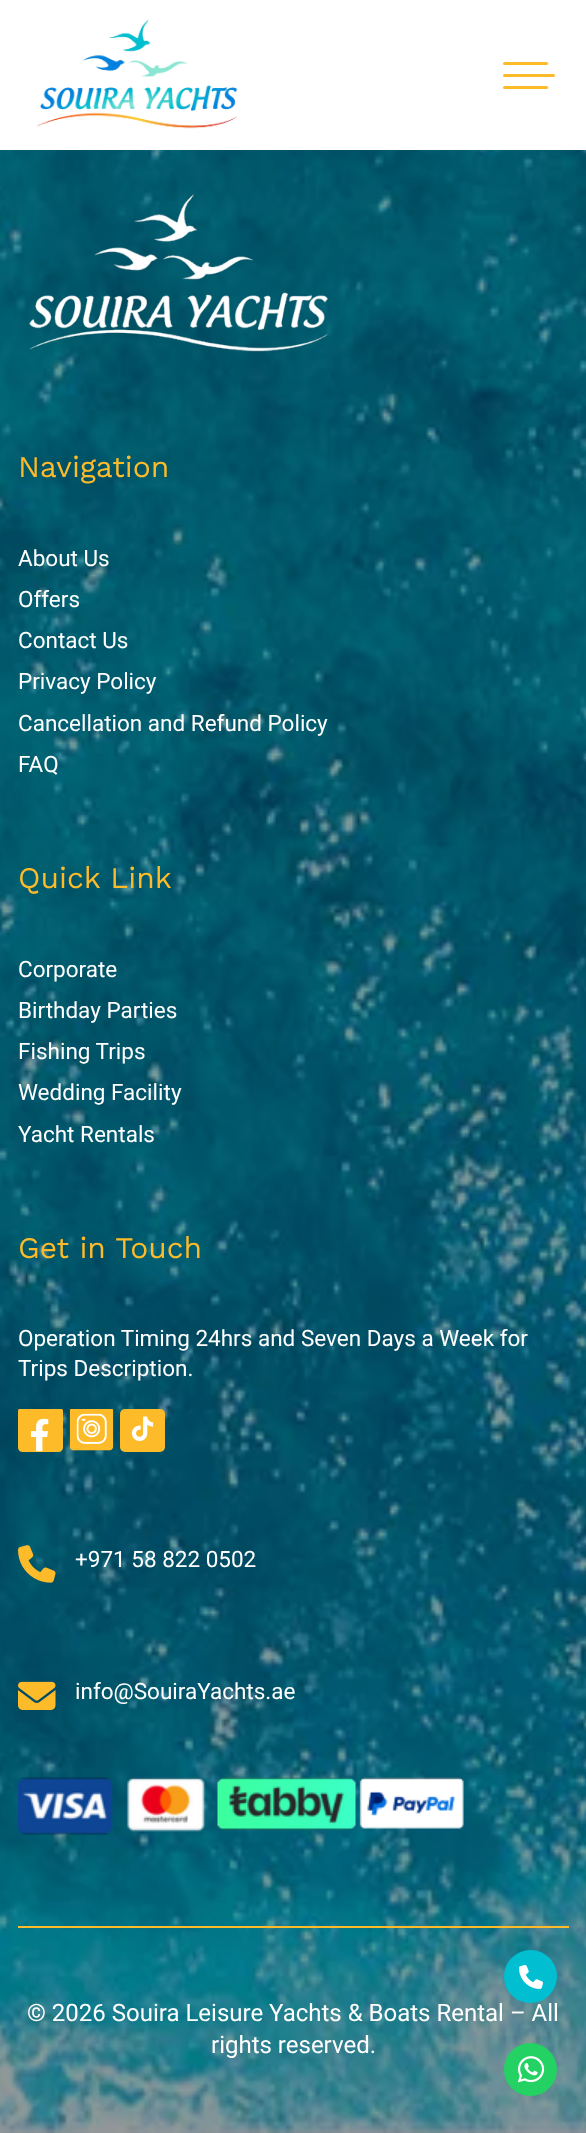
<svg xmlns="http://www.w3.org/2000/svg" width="586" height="2133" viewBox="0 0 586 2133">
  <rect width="100%" height="100%" fill="rgb(153,153,153)"/>
  <rect x="0" y="0" width="586" height="150" fill="rgb(255,255,255)"/>
  <image x="36" y="19" width="202" height="110" href="pic1.png"/>
  <rect x="503" y="62" width="45" height="3" rx="1.5" fill="rgb(253,187,42)"/>
  <rect x="503" y="74" width="52" height="3" rx="1.5" fill="rgb(253,187,42)"/>
  <rect x="503" y="86" width="45" height="3" rx="1.5" fill="rgb(253,187,42)"/>
  <image x="0" y="150" width="586" height="1983" href="pic2.png"/>
  <image x="29" y="193" width="299" height="159" href="pic3.png"/>
  <text x="18" y="477" font-family="Work Sans" font-size="30" fill="rgb(253,187,42)">Navigation</text>
  <g font-family="Roboto" font-size="22.5" fill="rgb(255,255,255)">
    <text>
      <tspan x="18" y="566">About Us</tspan>
      <tspan x="18" y="607">Offers</tspan>
      <tspan x="18" y="648">Contact Us</tspan>
      <tspan x="18" y="689">Privacy Policy</tspan>
      <tspan x="18" y="731">Cancellation and Refund Policy</tspan>
      <tspan x="18" y="772">FAQ</tspan>
    </text>
  </g>
  <text x="18" y="888" font-family="Work Sans" font-size="30" fill="rgb(253,187,42)">Quick Link</text>
  <g font-family="Roboto" font-size="22.5" fill="rgb(255,255,255)">
    <text>
      <tspan x="18" y="977">Corporate</tspan>
      <tspan x="18" y="1018">Birthday Parties</tspan>
      <tspan x="18" y="1059">Fishing Trips</tspan>
      <tspan x="18" y="1100">Wedding Facility</tspan>
      <tspan x="18" y="1142">Yacht Rentals</tspan>
    </text>
  </g>
  <text x="18" y="1258" font-family="Work Sans" font-size="30" fill="rgb(253,187,42)">Get in Touch</text>
  <g font-family="Roboto" font-size="22.5" fill="rgb(255,255,255)">
    <text>
      <tspan x="18" y="1346">Operation Timing 24hrs and Seven Days a Week for</tspan>
      <tspan x="18" y="1376">Trips Description.</tspan>
    </text>
  </g>
  <rect x="18" y="1926" width="551" height="2" fill="rgb(253,187,42)"/>
  <image x="18" y="1409" width="45" height="43" href="pic4.png"/>
  <image x="69" y="1409" width="45" height="42" href="pic5.png"/>
  <rect x="120" y="1409" width="45" height="43" rx="5" fill="rgb(253,187,42)"/>
  <image x="131" y="1416" width="23" height="25" href="pic6.png"/>
  <image x="18" y="1545" width="38" height="38" href="pic7.png"/>
  <text x="75" y="1567" font-family="Roboto" font-size="22.5" fill="rgb(255,255,255)">+971 58 822 0502</text>
  <image x="18" y="1681" width="38" height="29" href="pic8.png"/>
  <text x="75" y="1699" font-family="Roboto" font-size="22.5" fill="rgb(255,255,255)">info@SouiraYachts.ae</text>
  <image x="18" y="1777" width="446" height="58" href="pic9.png"/>
  <g font-family="Roboto" font-size="24" fill="rgb(255,255,255)">
    <text x="27" y="2021">© 2026 Souira Leisure Yachts &amp; Boats Rental – All</text>
    <text x="211" y="2053">rights reserved.</text>
  </g>
  <circle cx="530.5" cy="1976.5" r="26.5" fill="rgb(1,191,209)"/>
  <image x="519" y="1965" width="24" height="24" href="pic10.png"/>
  <circle cx="530.5" cy="2069.5" r="26.5" fill="rgb(36,209,99)"/>
  <image x="517" y="2056" width="28" height="27" href="pic11.png"/>
</svg>
